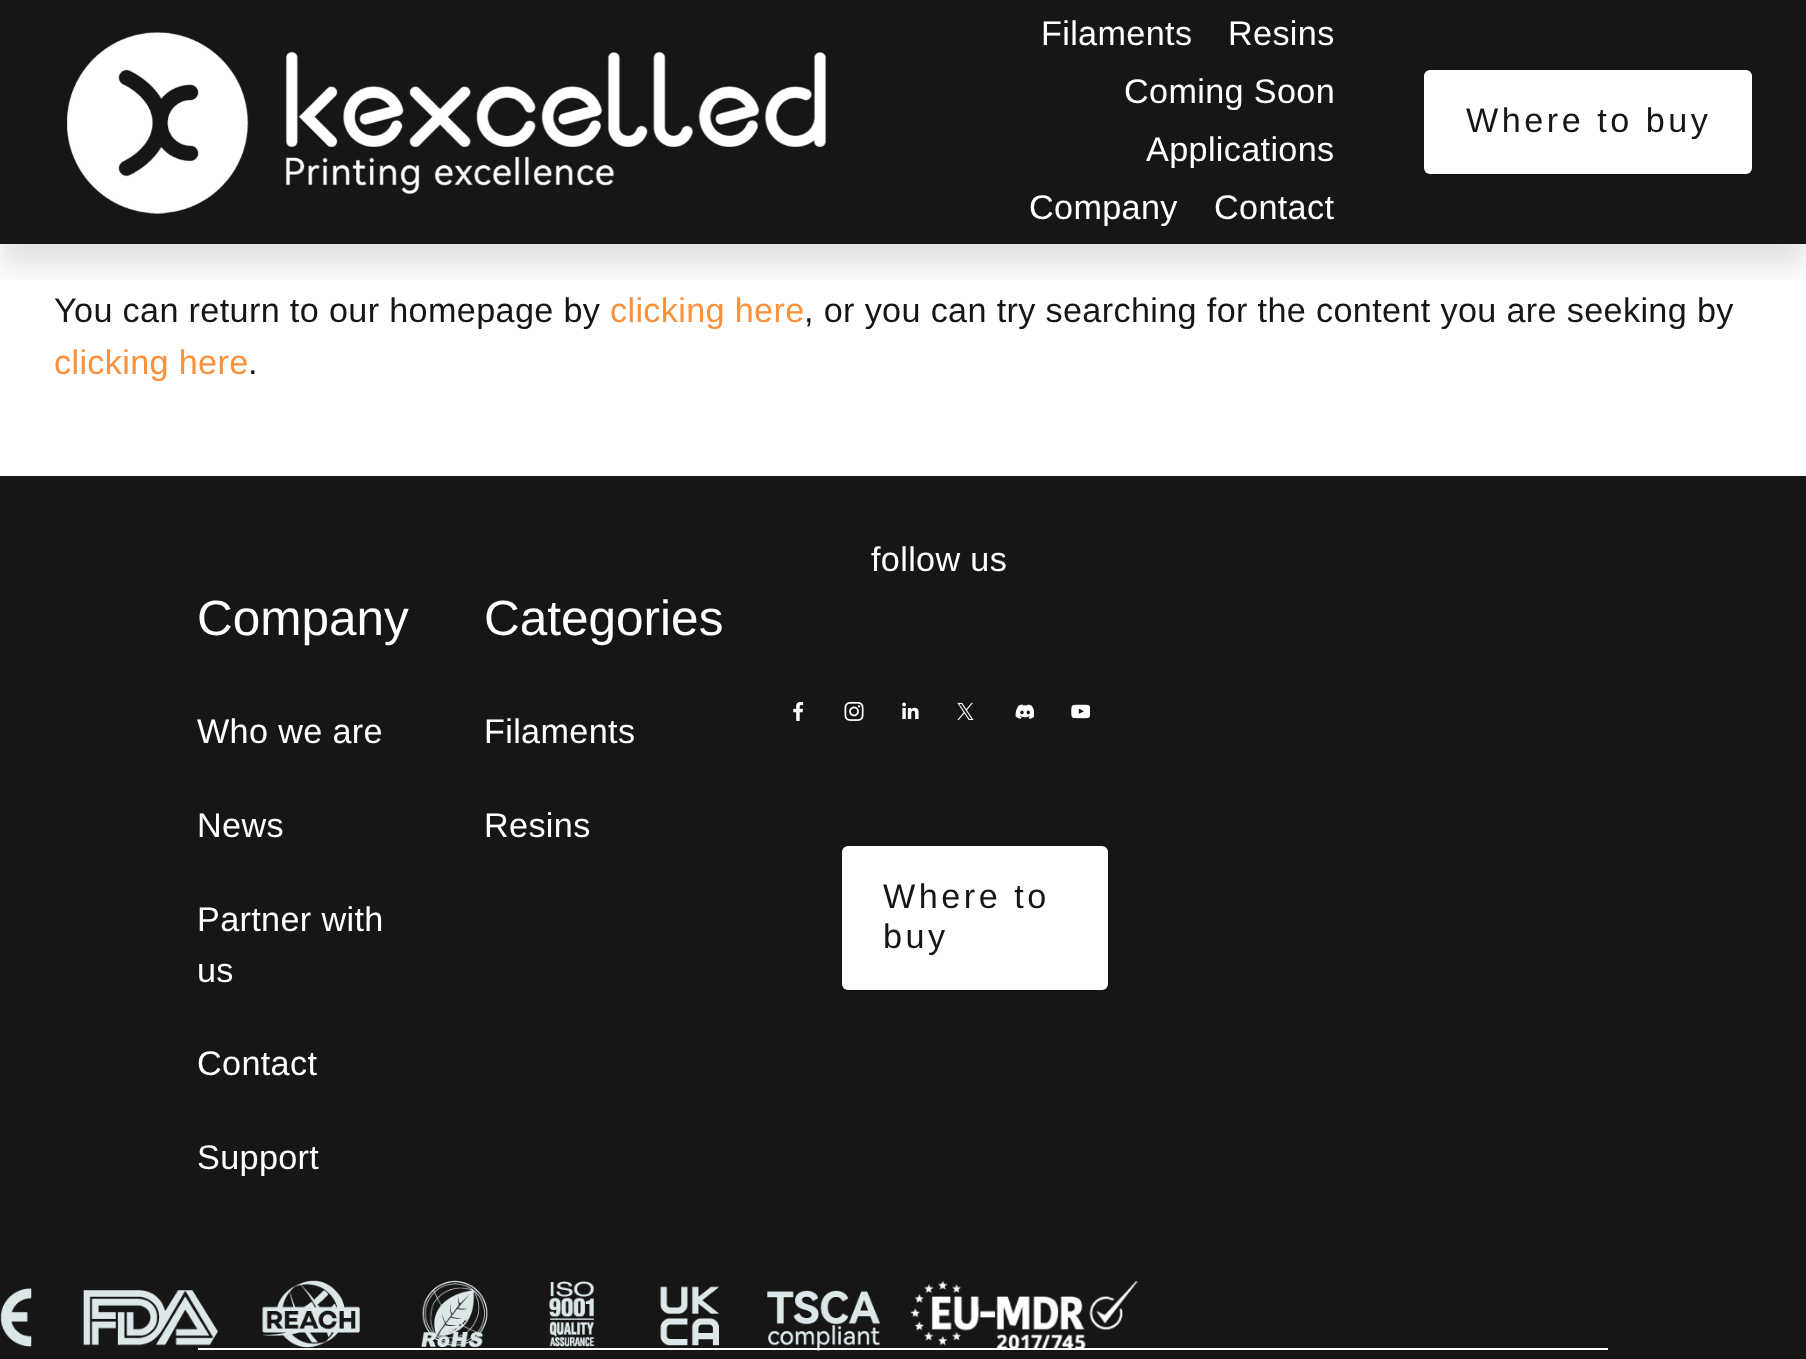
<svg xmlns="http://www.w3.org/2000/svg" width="1806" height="1359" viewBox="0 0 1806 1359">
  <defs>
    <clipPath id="clip1"><rect x="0" y="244" width="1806" height="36"/></clipPath>
  </defs>
  <rect width="100%" height="100%" fill="rgb(255,255,255)"/>
  <rect x="0" y="0" width="1806" height="244" fill="rgb(21,22,21)"/>
  <g clip-path="url(#clip1)">
    <rect x="0" y="24" width="1806" height="244" fill="rgba(21,22,21,0.12)" filter="blur(12px)"/>
  </g>
  <image x="67" y="32" width="760" height="182" href="pic1.png"/>
  <g font-family="Liberation Sans" font-size="34.2" letter-spacing="0.35" fill="rgb(255,255,255)">
    <text x="1041" y="45">Filaments</text>
    <text x="1228" y="45">Resins</text>
    <text x="1124" y="103">Coming Soon</text>
    <text x="1146" y="161">Applications</text>
    <text x="1029" y="219">Company</text>
    <text x="1214" y="219">Contact</text>
  </g>
  <rect x="1424" y="70" width="328" height="104" rx="6" fill="rgb(255,255,255)"/>
  <text x="1466" y="132" font-family="Liberation Sans" font-size="34.2" letter-spacing="3.5" fill="rgb(21,22,21)">Where to buy</text>
  <text x="54" y="322" font-family="Liberation Sans" font-size="34.2" letter-spacing="0.35" fill="rgb(21,22,21)">You can return to our homepage by</text>
  <text x="610" y="322" font-family="Liberation Sans" font-size="34.2" letter-spacing="0.35" fill="rgb(249,145,61)">clicking here</text>
  <text x="804" y="322" font-family="Liberation Sans" font-size="34.2" letter-spacing="0.35" fill="rgb(21,22,21)">, or you can try searching for the content you are seeking by</text>
  <text x="54" y="374" font-family="Liberation Sans" font-size="34.2" letter-spacing="0.35" fill="rgb(249,145,61)">clicking here</text>
  <text x="248" y="374" font-family="Liberation Sans" font-size="34.2" letter-spacing="0.35" fill="rgb(21,22,21)">.</text>
  <rect x="0" y="476" width="1806" height="883" fill="rgb(21,22,21)"/>
  <text x="871" y="571" font-family="Liberation Sans" font-size="34.2" letter-spacing="0.35" fill="rgb(255,255,255)">follow us</text>
  <g font-family="Liberation Sans" font-size="49.5" fill="rgb(255,255,255)">
    <text x="197" y="635">Company</text>
    <text x="484" y="635">Categories</text>
  </g>
  <image x="793" y="701" width="11" height="20" href="pic2.png"/>
  <image x="844" y="701" width="20" height="20" href="pic3.png"/>
  <image x="902" y="702" width="17" height="18" href="pic4.png"/>
  <image x="957" y="702" width="17" height="18" href="pic5.png"/>
  <image x="1015" y="704" width="19" height="15" href="pic6.png"/>
  <image x="1071" y="704" width="19" height="15" href="pic7.png"/>
  <g font-family="Liberation Sans" font-size="34.2" letter-spacing="0.35" fill="rgb(255,255,255)">
    <text x="197" y="743">Who we are</text>
    <text x="484" y="743">Filaments</text>
    <text x="197" y="837">News</text>
    <text x="484" y="837">Resins</text>
    <text>
      <tspan x="197" y="931">Partner with</tspan>
      <tspan x="197" y="982">us</tspan>
    </text>
  </g>
  <rect x="842" y="846" width="266" height="144" rx="6" fill="rgb(255,255,255)"/>
  <g font-family="Liberation Sans" font-size="34.2" letter-spacing="3.5" fill="rgb(21,22,21)">
    <text>
      <tspan x="883" y="908">Where to</tspan>
      <tspan x="883" y="948">buy</tspan>
    </text>
  </g>
  <g font-family="Liberation Sans" font-size="34.2" letter-spacing="0.35" fill="rgb(255,255,255)">
    <text x="197" y="1075">Contact</text>
    <text x="197" y="1169">Support</text>
  </g>
  <image x="0" y="1280" width="1138" height="71" href="pic8.png"/>
  <rect x="198" y="1348" width="1410" height="2" fill="rgb(255,255,255)"/>
</svg>
